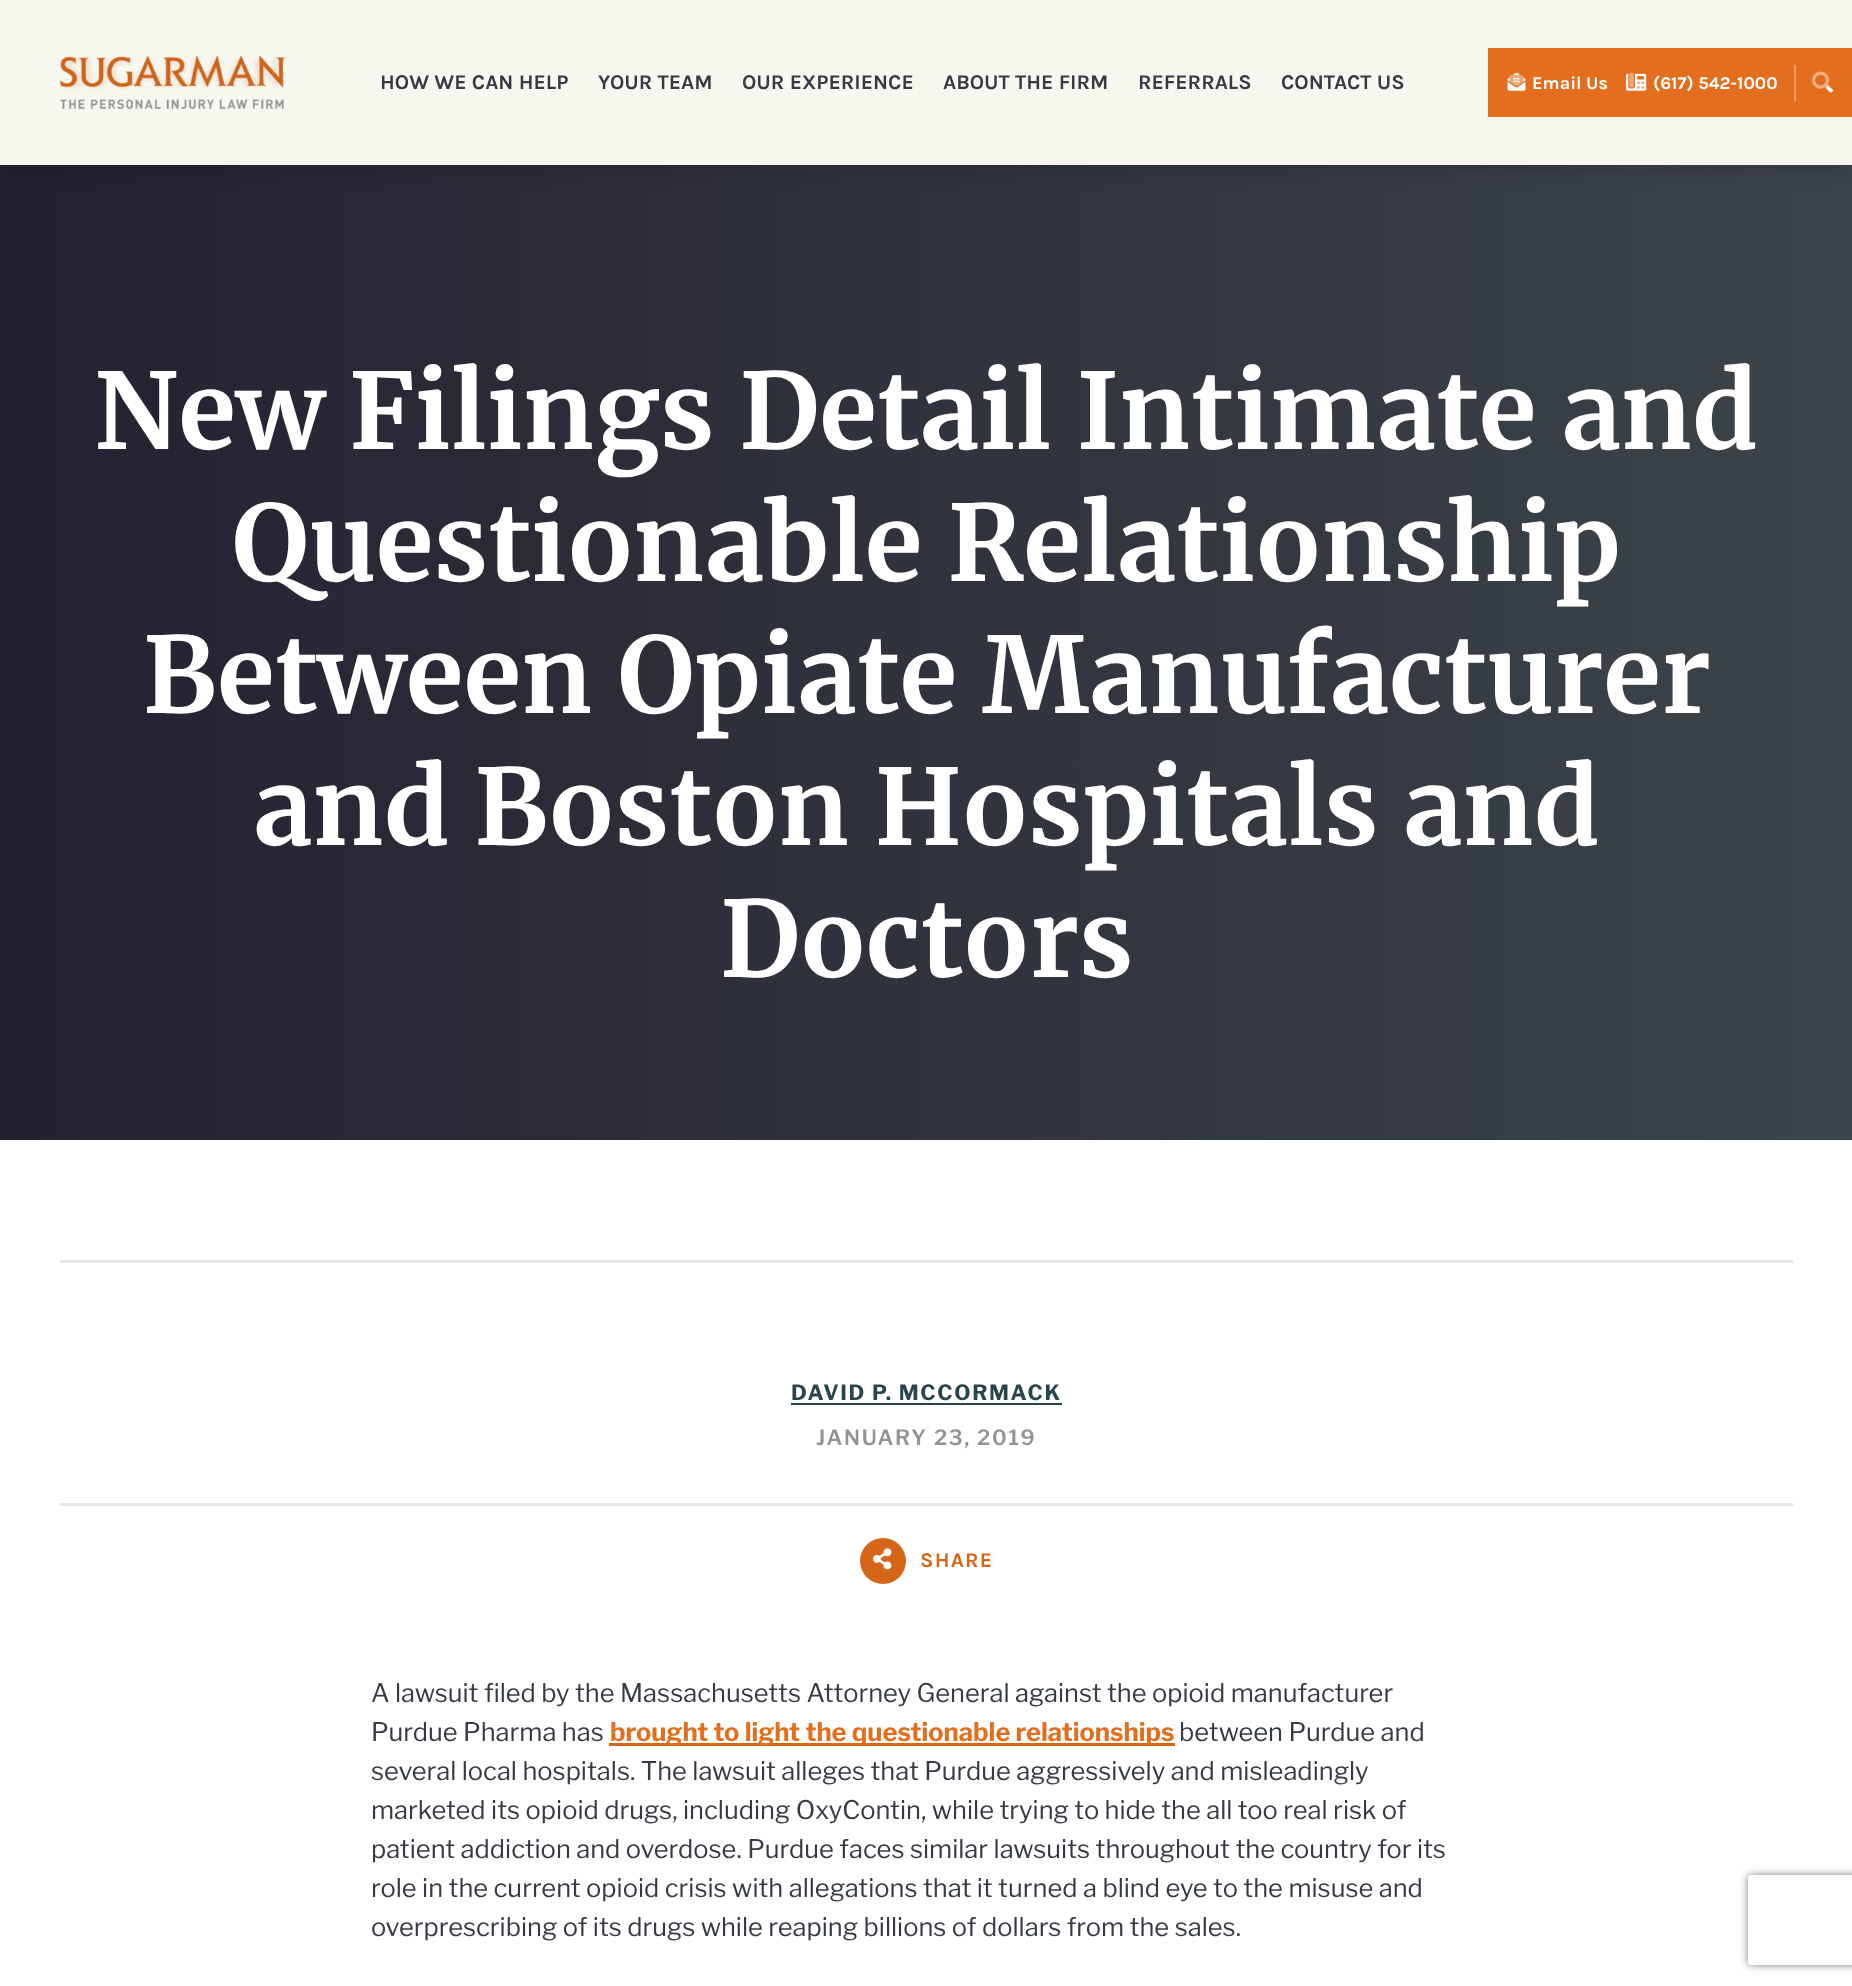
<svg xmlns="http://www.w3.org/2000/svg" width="1852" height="1986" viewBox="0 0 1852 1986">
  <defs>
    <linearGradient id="g1" gradientUnits="userSpaceOnUse" x1="0" y1="653" x2="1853" y2="652"><stop offset="0" stop-color="rgb(36,33,49)"/><stop offset="1" stop-color="rgb(60,68,73)"/></linearGradient>
    <clipPath id="clip1"><path d="M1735 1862H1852V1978H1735ZM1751 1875H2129C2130.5 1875 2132 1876.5 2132 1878V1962C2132 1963.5 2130.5 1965 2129 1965H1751C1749.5 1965 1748 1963.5 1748 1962V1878C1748 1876.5 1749.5 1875 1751 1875Z" clip-rule="evenodd"/></clipPath>
  </defs>
  <rect width="100%" height="100%" fill="rgb(255,255,255)"/>
  <rect x="0" y="165" width="1852" height="975" fill="url(#g1)"/>
  <rect x="0" y="0" width="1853" height="165" fill="rgba(0,0,0,0.2)" filter="blur(11px)"/>
  <rect x="0" y="0" width="1852" height="165" fill="rgb(247,247,240)"/>
  <image x="60" y="55" width="225" height="55" href="pic1.png"/>
  <g font-family="Karla" font-size="21" font-weight="bold" fill="rgb(54,59,67)">
    <text x="380" y="89">HOW WE CAN HELP</text>
    <text x="598" y="89">YOUR TEAM</text>
    <text x="742" y="89">OUR EXPERIENCE</text>
    <text x="943" y="89">ABOUT THE FIRM</text>
    <text x="1138" y="89">REFERRALS</text>
    <text x="1281" y="89">CONTACT US</text>
  </g>
  <rect x="1488" y="48" width="364" height="69" fill="rgb(227,111,30)"/>
  <image x="1507" y="72" width="19" height="19" href="pic2.png"/>
  <image x="1509" y="75" width="15" height="12" href="pic3.png"/>
  <text x="1532" y="89" font-family="Karla" font-size="18" font-weight="bold" fill="rgb(255,255,255)">Email Us</text>
  <image x="1626" y="73" width="21" height="18" href="pic5.png"/>
  <image x="1629" y="72" width="15" height="17" href="pic4.png"/>
  <text x="1653" y="89" font-family="Karla" font-size="18" font-weight="bold" fill="rgb(255,255,255)">(617) 542-1000</text>
  <rect x="1794" y="65" width="2" height="36" fill="rgb(235,154,98)"/>
  <image x="1825" y="85" width="8" height="8" href="pic7.png"/>
  <image x="1812" y="71" width="17" height="18" href="pic6.png"/>
  <g font-family="Merriweather" font-size="105" font-weight="bold" fill="rgb(255,255,255)">
    <text x="94" y="449">New Filings Detail Intimate and</text>
    <text x="232" y="581">Questionable Relationship</text>
    <text x="143" y="713">Between Opiate Manufacturer</text>
    <text x="253" y="845">and Boston Hospitals and</text>
    <text x="720" y="977">Doctors</text>
  </g>
  <rect x="60" y="1260" width="1733" height="3" fill="rgb(231,230,225)"/>
  <rect x="60" y="1503" width="1733" height="3" fill="rgb(231,230,225)"/>
  <text x="791" y="1400" font-family="Libre Franklin" font-size="21" font-weight="bold" letter-spacing="1.7" fill="rgb(41,69,77)">DAVID P. MCCORMACK</text>
  <rect x="791" y="1403" width="271" height="2" fill="rgb(41,69,77)"/>
  <text x="816" y="1445" font-family="Libre Franklin" font-size="21" font-weight="600" letter-spacing="1.7" fill="rgb(147,147,147)">JANUARY 23, 2019</text>
  <circle cx="883" cy="1561" r="23" fill="rgb(213,101,23)"/>
  <image x="873" y="1548" width="19" height="22" href="pic8.png"/>
  <text x="920" y="1567" font-family="Karla" font-size="21" font-weight="bold" letter-spacing="1.25" fill="rgb(213,101,23)">SHARE</text>
  <g font-family="Libre Franklin" font-size="25.5" fill="rgb(54,59,67)">
    <text>
      <tspan x="371" y="1702">A lawsuit filed by the Massachusetts Attorney General against the opioid manufacturer</tspan>
      <tspan x="371" y="1741">Purdue Pharma has</tspan>
    </text>
  </g>
  <rect x="609" y="1743" width="566" height="3" fill="rgb(213,101,23)"/>
  <text x="610" y="1741" font-family="Libre Franklin" font-size="25.5" font-weight="bold" fill="rgb(227,111,30)">brought to light the questionable relationships</text>
  <g font-family="Libre Franklin" font-size="25.5" fill="rgb(54,59,67)">
    <text x="1179" y="1741">between Purdue and</text>
    <text>
      <tspan x="371" y="1780">several local hospitals. The lawsuit alleges that Purdue aggressively and misleadingly</tspan>
      <tspan x="371" y="1819">marketed its opioid drugs, including OxyContin, while trying to hide the all too real risk of</tspan>
      <tspan x="371" y="1858">patient addiction and overdose. Purdue faces similar lawsuits throughout the country for its</tspan>
      <tspan x="371" y="1897">role in the current opioid crisis with allegations that it turned a blind eye to the misuse and</tspan>
      <tspan x="371" y="1936">overprescribing of its drugs while reaping billions of dollars from the sales.</tspan>
    </text>
  </g>
  <g clip-path="url(#clip1)">
    <rect x="1748" y="1875" width="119" height="90" rx="3" fill="rgb(128,128,128)" filter="blur(4px)"/>
  </g>
</svg>
